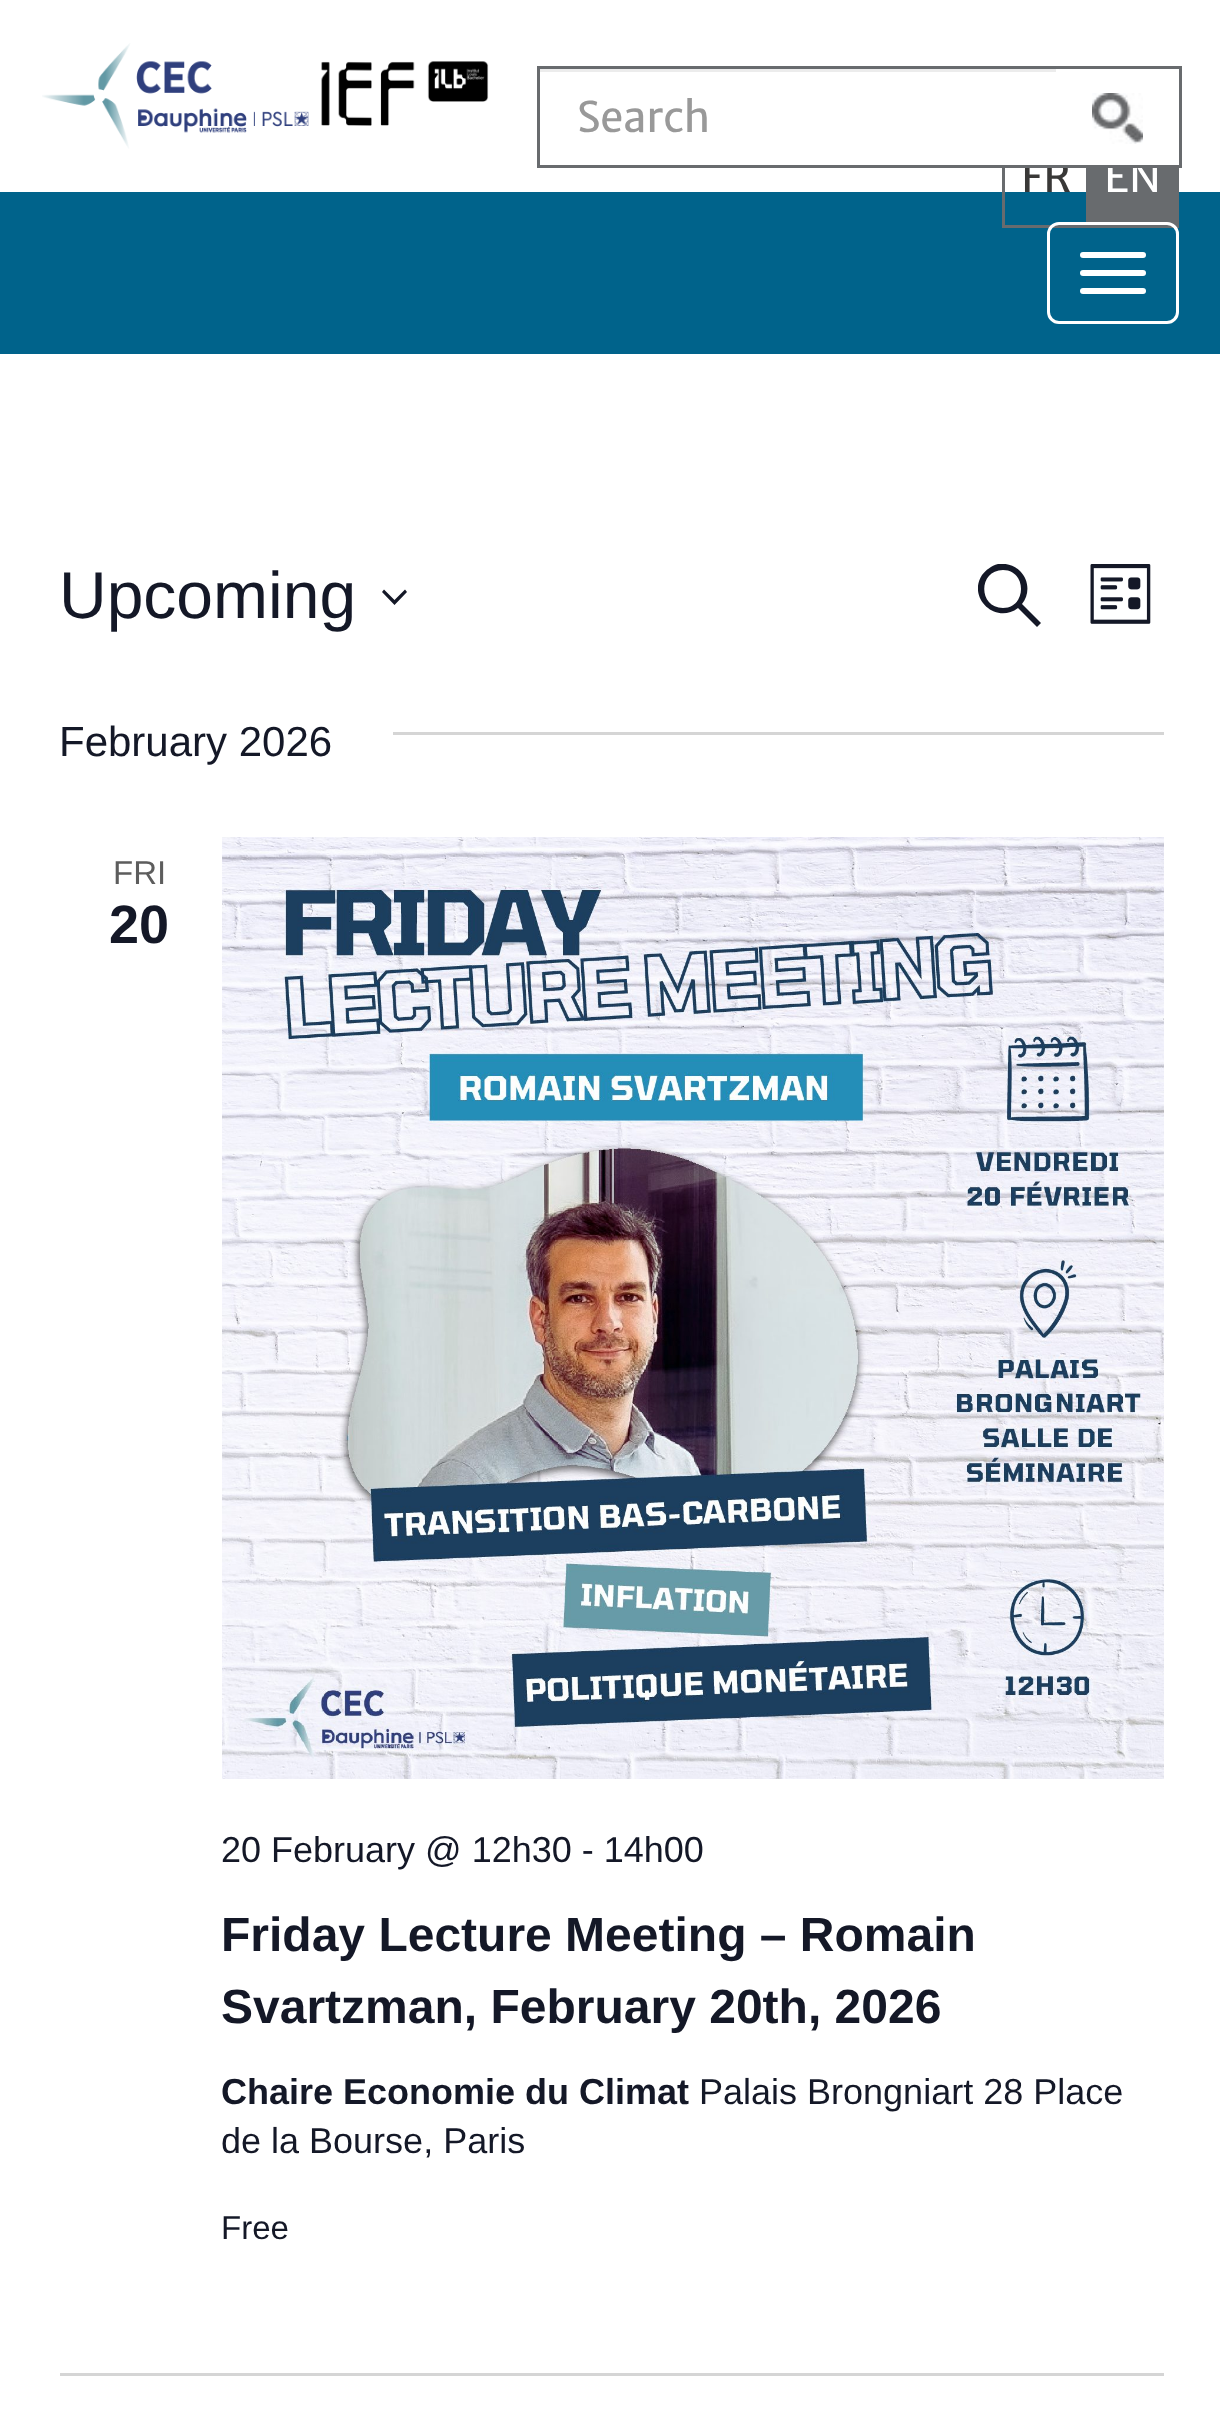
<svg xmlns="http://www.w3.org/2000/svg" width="1220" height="2416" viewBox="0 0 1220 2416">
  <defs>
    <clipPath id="clip1"><rect x="978" y="564" width="63" height="63"/></clipPath>
  </defs>
  <rect width="100%" height="100%" fill="rgb(255,255,255)"/>
  <image x="42" y="43" width="447" height="106" href="pic1.png"/>
  <text x="1021" y="192" font-family="Merriweather Sans" font-size="42" fill="rgb(57,56,55)">FR</text>
  <rect x="1024" y="160" width="43" height="5" fill="rgb(255,255,255)"/>
  <rect x="537" y="66" width="645" height="3" fill="rgb(104,107,110)"/>
  <rect x="1179" y="66" width="3" height="102" fill="rgb(104,107,110)"/>
  <rect x="0" y="192" width="1220" height="162" fill="rgb(0,99,139)"/>
  <rect x="1089" y="168" width="90" height="57" fill="rgb(104,107,110)"/>
  <text x="1104" y="192" font-family="Merriweather Sans" font-size="42" fill="rgb(255,255,255)">EN</text>
  <rect x="537" y="165" width="645" height="3" fill="rgb(104,107,110)"/>
  <image x="1092" y="93" width="51" height="51" href="pic2.png"/>
  <rect x="540" y="69" width="516" height="3" fill="rgb(236,236,236)"/>
  <rect x="537" y="66" width="3" height="102" fill="rgb(104,107,110)"/>
  <text x="577" y="132" font-family="Merriweather Sans" font-size="42" fill="rgb(153,153,153)">Search</text>
  <rect x="1086" y="225" width="93" height="3" fill="rgb(104,107,110)"/>
  <rect x="1086" y="168" width="3" height="60" fill="rgb(104,107,110)"/>
  <rect x="1002" y="225" width="87" height="3" fill="rgb(104,107,110)"/>
  <rect x="1002" y="168" width="3" height="60" fill="rgb(104,107,110)"/>
  <rect x="1048.5" y="223.5" width="129" height="99" rx="10.5" fill="none" stroke="rgb(255,255,255)" stroke-width="3"/>
  <rect x="1080" y="252" width="66" height="6" rx="3" fill="rgb(255,255,255)"/>
  <rect x="1080" y="270" width="66" height="6" rx="3" fill="rgb(255,255,255)"/>
  <rect x="1080" y="288" width="66" height="6" rx="3" fill="rgb(255,255,255)"/>
  <text x="59" y="618" font-family="Liberation Sans" font-size="66" fill="rgb(20,24,39)">Upcoming</text>
  <path d="M384 589.5L394.5 600L405 589.5L407 592L394.5 605L382 592Z" fill="rgb(20,24,39)" fill-rule="evenodd"/>
  <g clip-path="url(#clip1)">
    <path d="M1022 604L1041 623L1037 627L1018 608C996 625 967 598 982 575C986 570 991 566 998 564C1006 563 1014 565 1020 571C1029 580 1030 594 1022 604ZM1003 570C978 570 978 608 1003 608C1027 608 1027 570 1003 570Z" fill="rgb(20,24,39)" fill-rule="evenodd"/>
  </g>
  <image x="1090" y="564" width="61" height="60" href="pic3.png"/>
  <text x="59" y="756" font-family="Liberation Sans" font-size="42" fill="rgb(20,24,39)">February 2026</text>
  <rect x="393" y="732" width="771" height="3" fill="rgb(213,213,213)"/>
  <text x="113" y="884" font-family="Liberation Sans" font-size="33" fill="rgb(93,93,93)">FRI</text>
  <text x="109" y="943" font-family="Liberation Sans" font-size="54" font-weight="bold" fill="rgb(20,24,39)">20</text>
  <image x="222" y="837" width="942" height="942" href="pic4.png"/>
  <text x="221" y="1862" font-family="Liberation Sans" font-size="36" fill="rgb(20,24,39)">20 February @ 12h30 - 14h00</text>
  <g font-family="Liberation Sans" font-size="48" font-weight="bold" fill="rgb(20,24,39)">
    <text>
      <tspan x="221" y="1951">Friday Lecture Meeting – Romain</tspan>
      <tspan x="221" y="2023">Svartzman, February 20th, 2026</tspan>
    </text>
  </g>
  <text x="221" y="2104" font-family="Liberation Sans" font-size="36" font-weight="bold" fill="rgb(20,24,39)">Chaire Economie du Climat</text>
  <g font-family="Liberation Sans" font-size="36" fill="rgb(20,24,39)">
    <text x="699" y="2104">Palais Brongniart 28 Place</text>
    <text x="221" y="2153">de la Bourse, Paris</text>
  </g>
  <text x="221" y="2239" font-family="Liberation Sans" font-size="33" fill="rgb(20,24,39)">Free</text>
  <rect x="60" y="2373" width="1104" height="3" fill="rgb(213,213,213)"/>
</svg>
